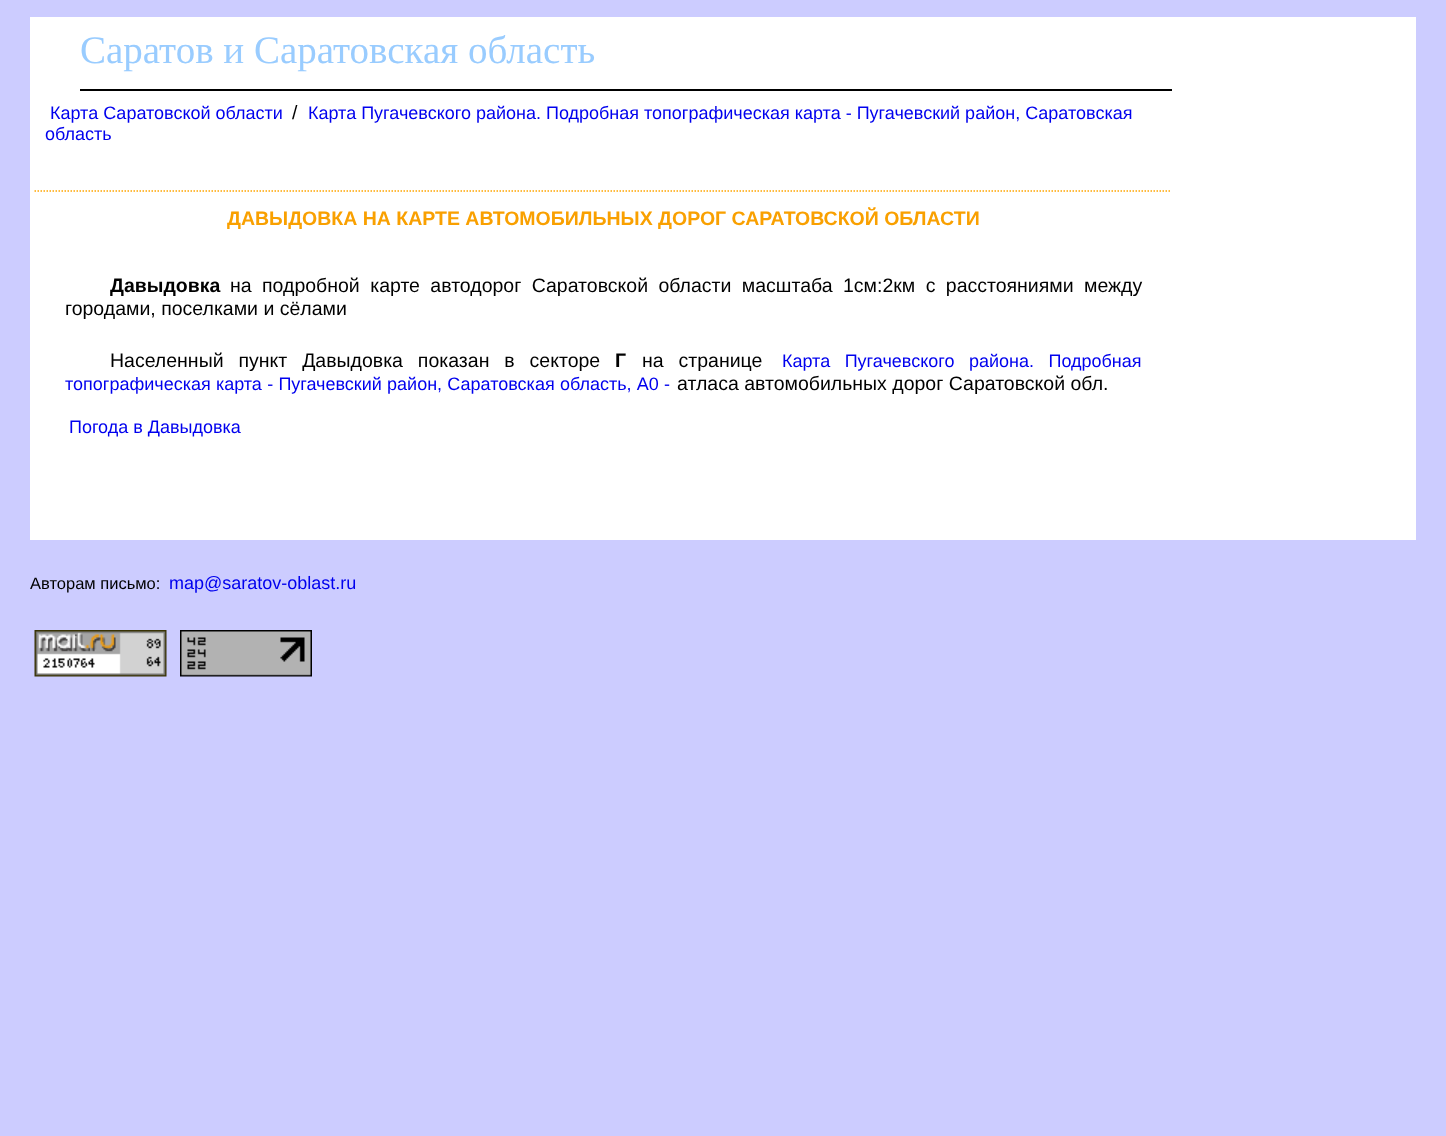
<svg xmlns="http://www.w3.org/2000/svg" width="1446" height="1136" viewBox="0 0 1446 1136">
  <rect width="100%" height="100%" fill="rgb(204,204,255)"/>
  <rect x="30" y="17" width="1386" height="523" fill="rgb(255,255,255)"/>
  <rect x="80" y="89" width="1092" height="2" fill="rgb(0,0,0)"/>
  <text x="80" y="63" font-family="Liberation Serif" font-size="39" fill="rgb(153,204,255)">Саратов и Саратовская область</text>
  <text x="50" y="119" font-family="Liberation Sans" font-size="18" fill="rgb(0,0,238)">Карта Саратовской области</text>
  <text x="292" y="119" font-family="Liberation Sans" font-size="19.5" fill="rgb(0,0,0)">/</text>
  <g font-family="Liberation Sans" font-size="18" fill="rgb(0,0,238)">
    <text x="308" y="119">Карта Пугачевского района. Подробная топографическая карта - Пугачевский район, Саратовская</text>
    <text x="45" y="140">область</text>
  </g>
  <path d="M34.5 191H1171.5" fill="none" stroke="rgb(255,165,0)" stroke-width="1.5" stroke-dasharray="1.5 1.5"/>
  <text x="227" y="225" font-family="Liberation Sans" font-size="19.5" font-weight="bold" fill="rgb(249,160,0)">ДАВЫДОВКА НА КАРТЕ АВТОМОБИЛЬНЫХ ДОРОГ САРАТОВСКОЙ ОБЛАСТИ</text>
  <text x="110" y="292" font-family="Liberation Sans" font-size="19.5" font-weight="bold" fill="rgb(0,0,0)">Давыдовка</text>
  <g font-family="Liberation Sans" font-size="19.5" fill="rgb(0,0,0)">
    <text x="230" y="292" word-spacing="5">на подробной карте автодорог Саратовской области масштаба 1см:2км с расстояниями между</text>
    <text x="65" y="315">городами, поселками и сёлами</text>
    <text x="110" y="367" word-spacing="9.5">Населенный пункт Давыдовка показан в секторе</text>
  </g>
  <text x="615" y="367" font-family="Liberation Sans" font-size="19.5" font-weight="bold" fill="rgb(0,0,0)">Г</text>
  <text x="642" y="367" word-spacing="9.5" font-family="Liberation Sans" font-size="19.5" fill="rgb(0,0,0)">на странице</text>
  <g font-family="Liberation Sans" font-size="18" fill="rgb(0,0,238)">
    <text x="782" y="367" word-spacing="9.5">Карта Пугачевского района. Подробная</text>
    <text x="65" y="390" word-spacing="0.25">топографическая карта - Пугачевский район, Саратовская область, A0 -</text>
  </g>
  <text x="677" y="390" font-family="Liberation Sans" font-size="19.5" fill="rgb(0,0,0)">атласа автомобильных дорог Саратовской обл.</text>
  <text x="69" y="433" font-family="Liberation Sans" font-size="18" fill="rgb(0,0,238)">Погода в Давыдовка</text>
  <text x="30" y="589" font-family="Liberation Sans" font-size="16.5" fill="rgb(0,0,0)">Авторам письмо:</text>
  <text x="169" y="589" font-family="Liberation Sans" font-size="18" fill="rgb(0,0,238)">map@saratov-oblast.ru</text>
  <image x="34" y="630" width="133" height="47" href="pic1.png"/>
  <image x="180" y="630" width="132" height="47" href="pic2.png"/>
</svg>
